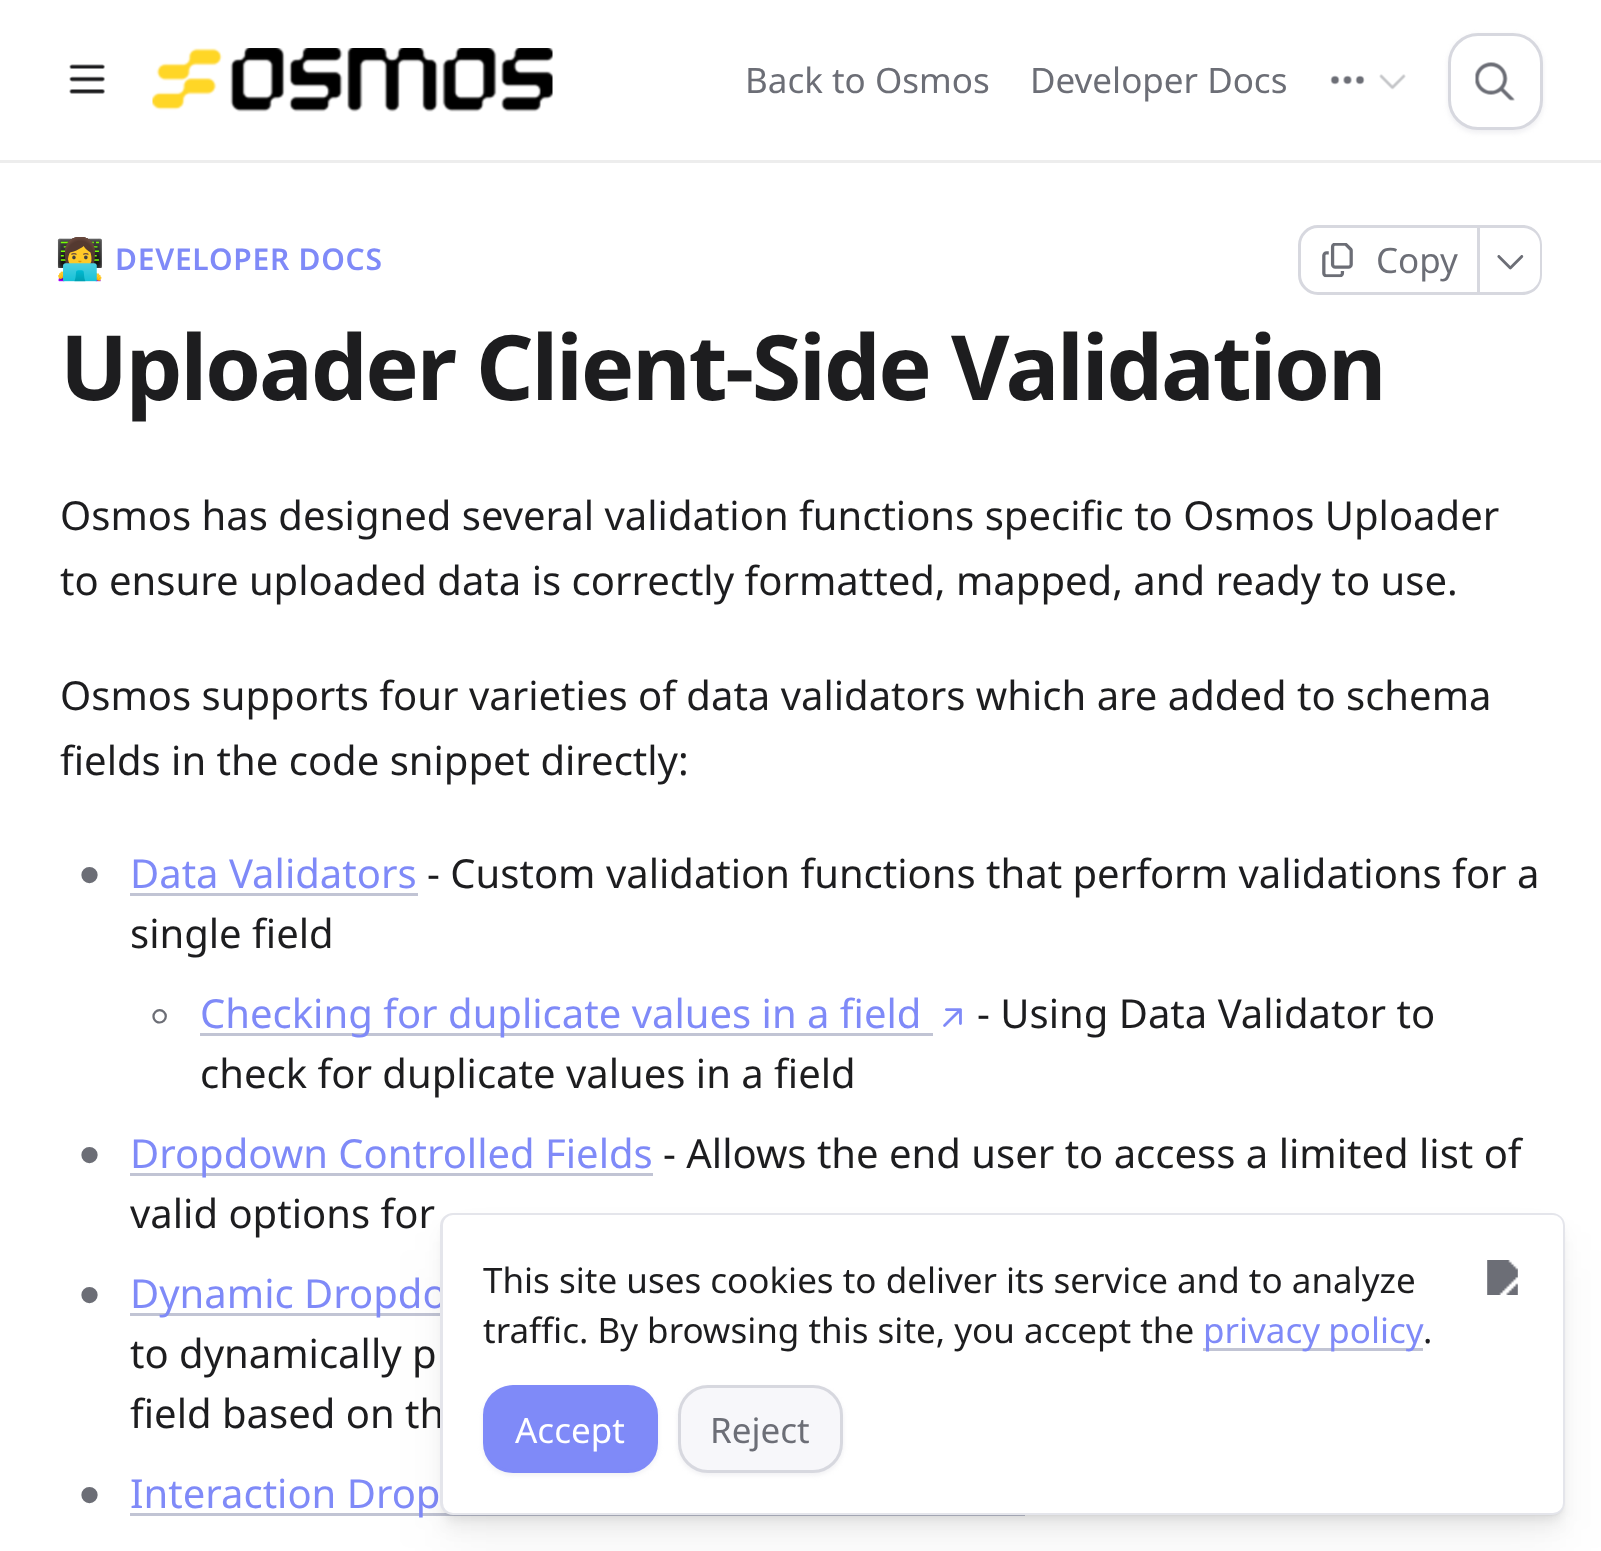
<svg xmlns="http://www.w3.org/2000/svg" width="1601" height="1551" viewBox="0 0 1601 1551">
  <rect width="100%" height="100%" fill="rgb(255,255,255)"/>
  <path d="M0 160V163H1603V3H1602V160Z" fill="rgb(237,237,237)"/>
  <image x="69" y="64" width="36" height="30" href="pic1.png"/>
  <image x="152" y="48" width="401" height="64" href="pic2.png"/>
  <g font-family="Noto Sans" font-size="35" fill="rgb(108,110,118)">
    <text x="745" y="93">Back to Osmos</text>
    <text x="1030" y="93">Developer Docs</text>
  </g>
  <image x="1330" y="75" width="35" height="10" href="pic3.png"/>
  <image x="1379" y="74" width="27" height="16" href="pic4.png"/>
  <rect x="1448" y="35" width="95" height="98" rx="30" fill="rgba(215,216,223,0.4)" filter="blur(2.5px)"/>
  <rect x="1449.5" y="34.5" width="92" height="94" rx="28.5" fill="rgb(255,255,255)" stroke="rgb(215,216,223)" stroke-width="3"/>
  <image x="1475" y="62" width="40" height="39" href="pic5.png"/>
  <text x="55" y="273" font-family="Noto Color Emoji" font-size="40" letter-spacing="0.75" fill="rgb(127,138,248)">👩‍💻</text>
  <text x="115" y="270" font-family="Noto Sans" font-size="30" font-weight="600" letter-spacing="0.75" fill="rgb(127,138,248)">DEVELOPER DOCS</text>
  <path d="M1318 226.5H1478.5V293.5H1318C1308 293.5 1299.5 285 1299.5 275V245C1299.5 235 1308 226.5 1318 226.5Z" fill="none" stroke="rgb(215,216,223)" stroke-width="3"/>
  <image x="1322" y="243" width="31" height="35" href="pic6.png"/>
  <text x="1376" y="273" font-family="Noto Sans" font-size="35" fill="rgb(108,110,118)">Copy</text>
  <path d="M1480 225H1522C1534 225 1542 234 1542 245V275C1542 286 1534 295 1522 295H1480ZM1480 228H1522C1532 228 1540 235 1540 245V275C1540 285 1532 292 1522 292H1480Z" fill="rgb(215,216,223)" fill-rule="evenodd"/>
  <image x="1497" y="255" width="27" height="15" href="pic7.png"/>
  <text x="60" y="400" font-family="Noto Sans" font-size="90" font-weight="bold" letter-spacing="-2.25" fill="rgb(29,29,31)">Uploader Client-Side Validation</text>
  <g font-family="Noto Sans" font-size="40" fill="rgb(29,29,31)">
    <text>
      <tspan x="60" y="530">Osmos has designed several validation functions specific to Osmos Uploader</tspan>
      <tspan x="60" y="595">to ensure uploaded data is correctly formatted, mapped, and ready to use.</tspan>
    </text>
    <text>
      <tspan x="60" y="710">Osmos supports four varieties of data validators which are added to schema</tspan>
      <tspan x="60" y="775">fields in the code snippet directly:</tspan>
    </text>
  </g>
  <text x="79" y="895" font-family="Liberation Sans" font-size="60" fill="rgb(108,110,118)">•</text>
  <text x="130" y="888" font-family="Noto Sans" font-size="40" fill="rgb(127,138,248)">Data Validators</text>
  <rect x="130" y="893" width="288" height="3" fill="rgb(193,196,212)"/>
  <g font-family="Noto Sans" font-size="40" fill="rgb(29,29,31)">
    <text x="427" y="888">- Custom validation functions that perform validations for a</text>
    <text x="130" y="948">single field</text>
  </g>
  <text x="149" y="1035" font-family="Liberation Sans" font-size="60" fill="rgb(108,110,118)">◦</text>
  <rect x="200" y="1033" width="733" height="3" fill="rgb(193,196,212)"/>
  <text x="200" y="1028" font-family="Noto Sans" font-size="40" fill="rgb(127,138,248)">Checking for duplicate values in a field</text>
  <image x="943" y="1008" width="19" height="19" href="pic8.png"/>
  <g font-family="Noto Sans" font-size="40" fill="rgb(29,29,31)">
    <text x="977" y="1028">- Using Data Validator to</text>
    <text x="200" y="1088">check for duplicate values in a field</text>
  </g>
  <text x="79" y="1175" font-family="Liberation Sans" font-size="60" fill="rgb(108,110,118)">•</text>
  <rect x="130" y="1173" width="523" height="3" fill="rgb(193,196,212)"/>
  <text x="130" y="1168" font-family="Noto Sans" font-size="40" fill="rgb(127,138,248)">Dropdown Controlled Fields</text>
  <g font-family="Noto Sans" font-size="40" fill="rgb(29,29,31)">
    <text x="663" y="1168">- Allows the end user to access a limited list of</text>
    <text x="130" y="1228">valid options for</text>
  </g>
  <text x="79" y="1315" font-family="Liberation Sans" font-size="60" fill="rgb(108,110,118)">•</text>
  <rect x="130" y="1313" width="310" height="3" fill="rgb(193,196,212)"/>
  <text x="130" y="1308" font-family="Noto Sans" font-size="40" fill="rgb(127,138,248)">Dynamic Dropdo</text>
  <g font-family="Noto Sans" font-size="40" fill="rgb(29,29,31)">
    <text>
      <tspan x="130" y="1368">to dynamically p</tspan>
      <tspan x="130" y="1428">field based on th</tspan>
    </text>
  </g>
  <text x="79" y="1515" font-family="Liberation Sans" font-size="60" fill="rgb(108,110,118)">•</text>
  <rect x="130" y="1513" width="895" height="3" fill="rgb(193,196,212)"/>
  <text x="130" y="1508" font-family="Noto Sans" font-size="40" fill="rgb(127,138,248)">Interaction Drop</text>
  <rect x="443" y="1250" width="1120" height="298" rx="10" fill="rgba(0,0,0,0.04)" filter="blur(27.5px)"/>
  <rect x="443" y="1230" width="1120" height="298" rx="10" fill="rgba(0,0,0,0.05)" filter="blur(8.5px)"/>
  <rect x="443" y="1223" width="1120" height="297" rx="10" fill="rgba(0,0,0,0.05)" filter="blur(3.5px)"/>
  <rect x="443" y="1218" width="1120" height="297" rx="10" fill="rgba(0,0,0,0.09)" filter="blur(1px)"/>
  <rect x="441.5" y="1214.5" width="1122" height="299" rx="11.5" fill="none" stroke="rgb(228,229,235)" stroke-width="3"/>
  <rect x="443" y="1215" width="1120" height="298" rx="10" fill="rgb(255,255,255)"/>
  <g font-family="Noto Sans" font-size="35" fill="rgb(29,29,31)">
    <text>
      <tspan x="483" y="1293">This site uses cookies to deliver its service and to analyze</tspan>
      <tspan x="483" y="1343">traffic. By browsing this site, you accept the</tspan>
    </text>
  </g>
  <rect x="1203" y="1348" width="220" height="3" fill="rgb(193,196,212)"/>
  <text x="1203" y="1343" word-spacing="-1" font-family="Noto Sans" font-size="35" fill="rgb(127,138,248)">privacy policy</text>
  <text x="1423" y="1343" font-family="Noto Sans" font-size="35" fill="rgb(29,29,31)">.</text>
  <image x="1487" y="1260" width="31" height="35" href="pic9.png"/>
  <rect x="483" y="1388" width="175" height="87" rx="30" fill="rgba(215,216,223,0.4)" filter="blur(2.5px)"/>
  <rect x="484.5" y="1386.5" width="172" height="85" rx="28.5" fill="rgb(127,138,248)" stroke="rgb(127,138,248)" stroke-width="3"/>
  <text x="515" y="1443" font-family="Noto Sans" font-size="35" fill="rgb(255,255,255)">Accept</text>
  <rect x="678" y="1388" width="165" height="87" rx="30" fill="rgba(215,216,223,0.4)" filter="blur(2.5px)"/>
  <rect x="679.5" y="1386.5" width="162" height="85" rx="28.5" fill="rgb(247,247,250)" stroke="rgb(215,216,223)" stroke-width="3"/>
  <text x="710" y="1443" font-family="Noto Sans" font-size="35" fill="rgb(108,110,118)">Reject</text>
</svg>
